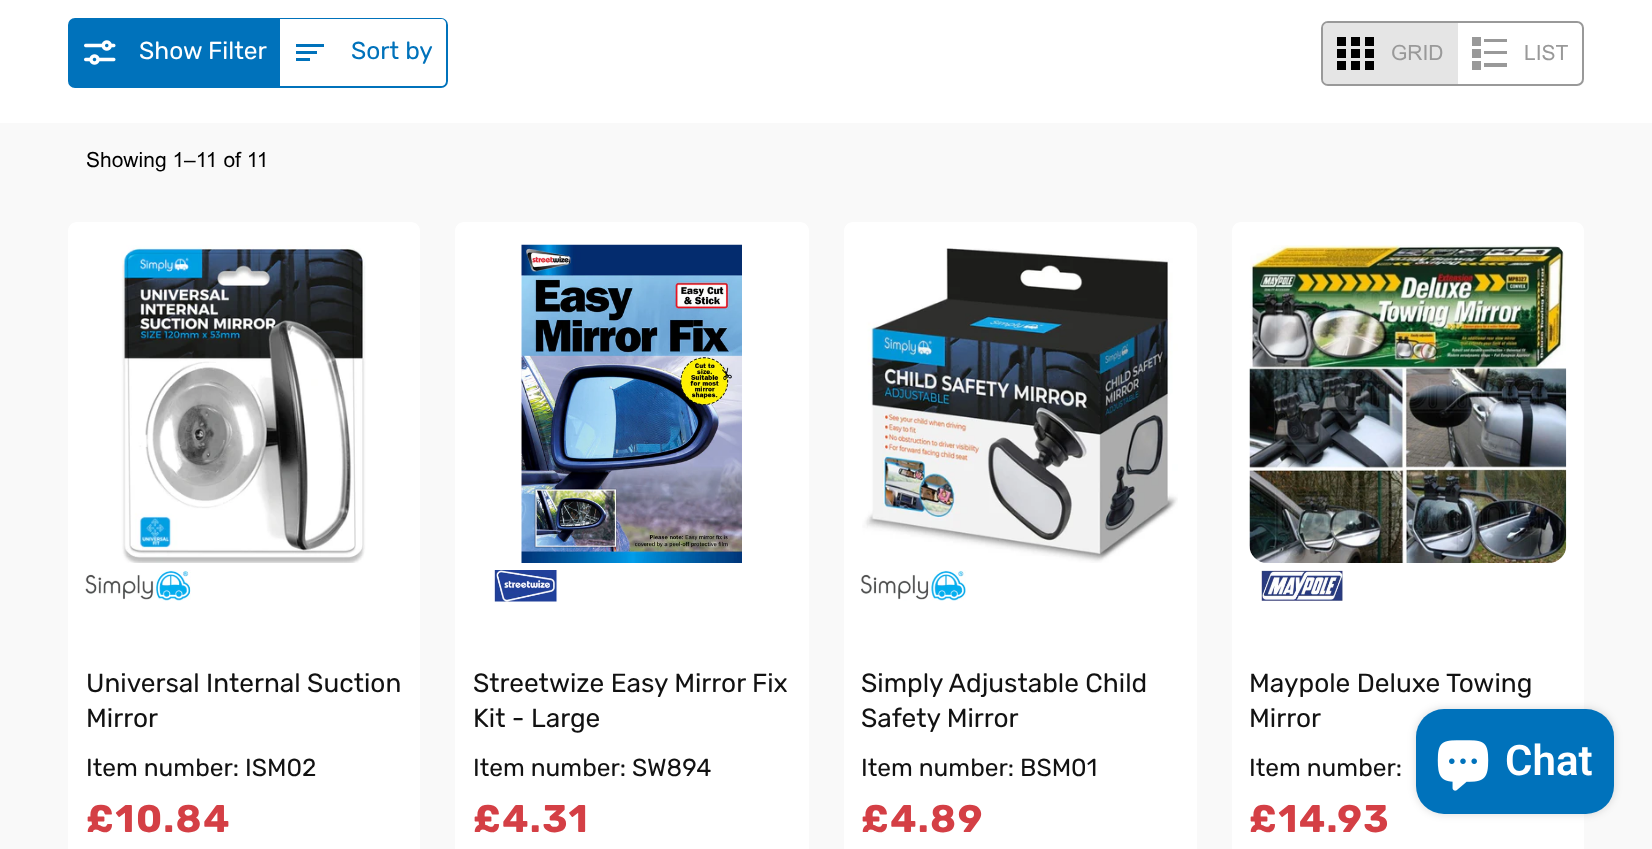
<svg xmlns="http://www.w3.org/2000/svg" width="1652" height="849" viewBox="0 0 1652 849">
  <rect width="100%" height="100%" fill="rgb(255,255,255)"/>
  <rect x="69" y="19" width="378" height="68" rx="6" fill="rgb(0,114,187)" stroke="rgb(0,114,187)" stroke-width="2"/>
  <rect x="280" y="19" width="2" height="67" fill="rgb(255,255,255)"/>
  <image x="84" y="40" width="32" height="25" href="pic1.png"/>
  <text x="139" y="59" font-family="Rubik" font-size="24.5" fill="rgb(255,255,255)">Show Filter</text>
  <path d="M282 19H441C444 19 446 21 446 24V81C446 84 444 86 441 86H282Z" fill="rgb(255,255,255)"/>
  <rect x="296" y="44" width="28" height="3" fill="rgb(0,114,187)"/>
  <rect x="296" y="51" width="21" height="3" fill="rgb(0,114,187)"/>
  <rect x="296" y="58" width="14" height="3" fill="rgb(0,114,187)"/>
  <text x="351" y="59" font-family="Rubik" font-size="24.5" fill="rgb(0,114,187)">Sort by</text>
  <rect x="1322" y="22" width="261" height="63" rx="6" fill="none" stroke="rgb(153,153,153)" stroke-width="2"/>
  <path d="M1328 23H1458V84H1328C1325 84 1323 82 1323 79V28C1323 25 1325 23 1328 23Z" fill="rgba(223,223,223,0.8)"/>
  <image x="1337" y="37" width="37" height="33" href="pic2.png"/>
  <text x="1391" y="60" font-family="Arial" font-size="21" fill="rgb(153,153,153)">GRID</text>
  <rect x="1472" y="37" width="9" height="9" fill="rgb(153,153,153)"/>
  <rect x="1472" y="49" width="9" height="9" fill="rgb(153,153,153)"/>
  <rect x="1472" y="61" width="9" height="9" fill="rgb(153,153,153)"/>
  <rect x="1484" y="39" width="23" height="3" fill="rgb(153,153,153)"/>
  <rect x="1484" y="51" width="23" height="3" fill="rgb(153,153,153)"/>
  <rect x="1484" y="63" width="23" height="4" fill="rgb(153,153,153)"/>
  <text x="1524" y="60" font-family="Arial" font-size="21" fill="rgb(153,153,153)">LIST</text>
  <rect x="0" y="123" width="1652" height="726" fill="rgb(249,249,249)"/>
  <text x="86" y="167" font-family="Arial" font-size="21" fill="rgb(0,0,0)">Showing 1–11 of 11</text>
  <path d="M77 222H411C416 222 420 226 420 231V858H68V231C68 226 72 222 77 222Z" fill="rgb(255,255,255)"/>
  <image x="121" y="245" width="245" height="318" href="pic3.png"/>
  <image x="85" y="570" width="106" height="31" href="pic4.png"/>
  <g font-family="Rubik" font-size="26.25" fill="rgb(18,18,18)">
    <text>
      <tspan x="86" y="692">Universal Internal Suction</tspan>
      <tspan x="86" y="727">Mirror</tspan>
    </text>
  </g>
  <text x="86" y="776" font-family="Rubik" font-size="24.5" fill="rgb(18,18,18)">Item number: ISM02</text>
  <text x="86" y="832" font-family="Rubik" font-size="38.5" font-weight="bold" letter-spacing="1.5" fill="rgb(212,63,69)">£10.84</text>
  <path d="M464 222H800C805 222 809 226 809 231V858H455V231C455 226 459 222 464 222Z" fill="rgb(255,255,255)"/>
  <image x="521" y="244" width="221" height="319" href="pic5.png"/>
  <image x="494" y="570" width="64" height="32" href="pic6.png"/>
  <g font-family="Rubik" font-size="26.25" fill="rgb(18,18,18)">
    <text>
      <tspan x="473" y="692">Streetwize Easy Mirror Fix</tspan>
      <tspan x="473" y="727">Kit - Large</tspan>
    </text>
  </g>
  <text x="473" y="776" font-family="Rubik" font-size="24.5" fill="rgb(18,18,18)">Item number: SW894</text>
  <text x="473" y="832" font-family="Rubik" font-size="38.5" font-weight="bold" letter-spacing="1.5" fill="rgb(212,63,69)">£4.31</text>
  <path d="M853 222H1188C1193 222 1197 226 1197 231V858H844V231C844 226 848 222 853 222Z" fill="rgb(255,255,255)"/>
  <image x="862" y="248" width="316" height="315" href="pic7.png"/>
  <image x="861" y="570" width="105" height="31" href="pic8.png"/>
  <g font-family="Rubik" font-size="26.25" fill="rgb(18,18,18)">
    <text>
      <tspan x="861" y="692">Simply Adjustable Child</tspan>
      <tspan x="861" y="727">Safety Mirror</tspan>
    </text>
  </g>
  <text x="861" y="776" font-family="Rubik" font-size="24.5" fill="rgb(18,18,18)">Item number: BSM01</text>
  <text x="861" y="832" font-family="Rubik" font-size="38.5" font-weight="bold" letter-spacing="1.5" fill="rgb(212,63,69)">£4.89</text>
  <path d="M1241 222H1575C1580 222 1584 226 1584 231V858H1232V231C1232 226 1236 222 1241 222Z" fill="rgb(255,255,255)"/>
  <image x="1249" y="245" width="318" height="318" href="pic9.png"/>
  <image x="1261" y="570" width="82" height="31" href="pic10.png"/>
  <g font-family="Rubik" font-size="26.25" fill="rgb(18,18,18)">
    <text>
      <tspan x="1249" y="692">Maypole Deluxe Towing</tspan>
      <tspan x="1249" y="727">Mirror</tspan>
    </text>
  </g>
  <text x="1249" y="776" font-family="Rubik" font-size="24.5" fill="rgb(18,18,18)">Item number:</text>
  <text x="1249" y="832" font-family="Rubik" font-size="38.5" font-weight="bold" letter-spacing="1.5" fill="rgb(212,63,69)">£14.93</text>
  <rect x="1416" y="709" width="198" height="105" rx="28" fill="rgba(0,0,0,0.15)" filter="blur(4.5px)"/>
  <rect x="1416" y="709" width="198" height="105" rx="28" fill="rgb(0,114,187)"/>
  <image x="1437" y="740" width="52" height="51" href="pic11.png"/>
  <text x="1505" y="775" font-family="Roboto" font-size="42" font-weight="600" fill="rgb(255,255,255)">Chat</text>
</svg>
